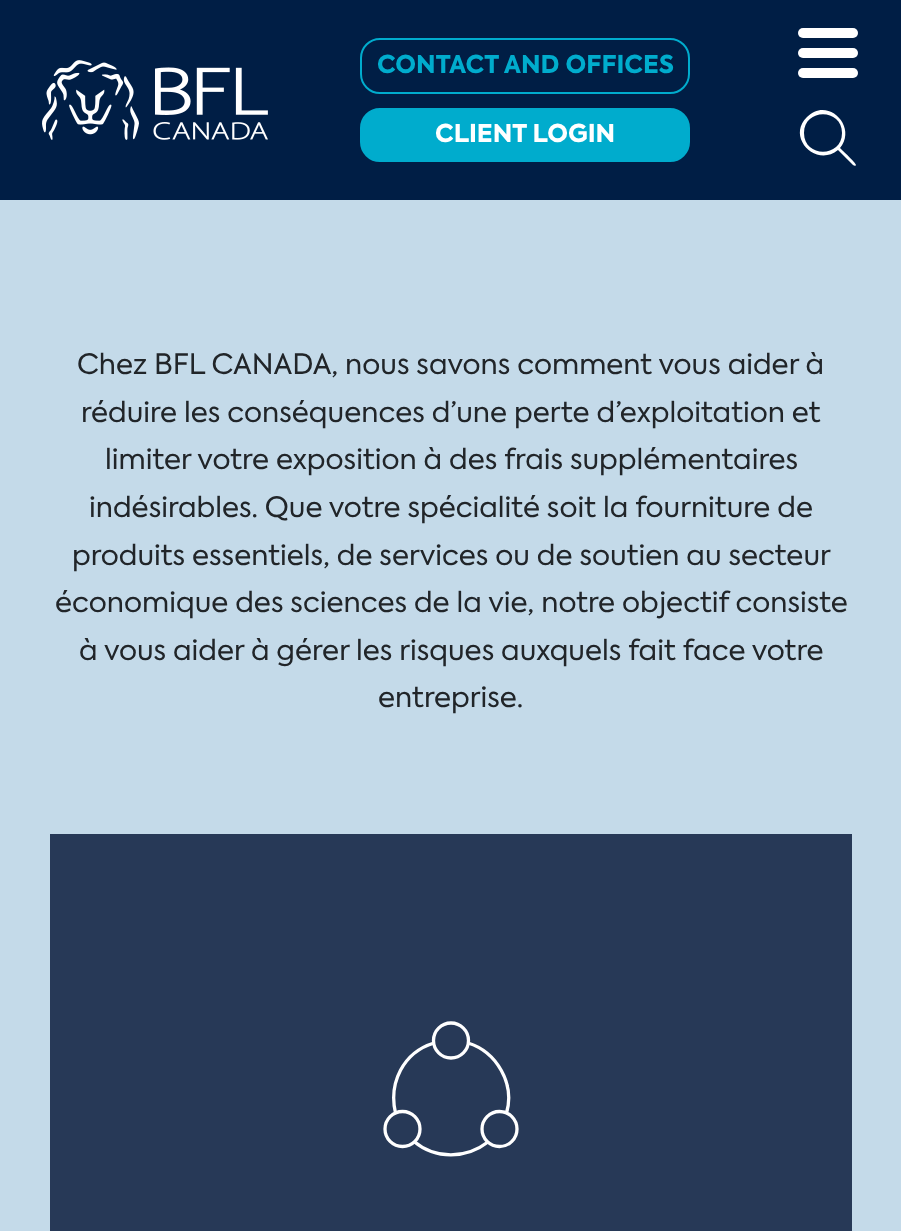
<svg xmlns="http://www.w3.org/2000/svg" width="901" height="1231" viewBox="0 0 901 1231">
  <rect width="100%" height="100%" fill="rgb(196,218,233)"/>
  <rect x="0" y="0" width="901" height="200" fill="rgb(0,30,69)"/>
  <image x="42" y="60" width="226" height="80" href="pic1.png"/>
  <rect x="361" y="39" width="328" height="54" rx="19" fill="none" stroke="rgb(0,172,205)" stroke-width="2"/>
  <text x="377" y="73" font-family="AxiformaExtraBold" font-size="24.5" font-weight="800" fill="rgb(0,172,205)">CONTACT AND OFFICES</text>
  <rect x="361" y="109" width="328" height="52" rx="19" fill="rgb(0,172,205)" stroke="rgb(0,172,205)" stroke-width="2"/>
  <text x="435" y="142" font-family="AxiformaExtraBold" font-size="24.5" font-weight="800" fill="rgb(255,255,255)">CLIENT LOGIN</text>
  <rect x="798" y="28" width="60" height="10" rx="5" fill="rgb(255,255,255)"/>
  <rect x="798" y="48" width="60" height="10" rx="5" fill="rgb(255,255,255)"/>
  <rect x="798" y="68" width="60" height="10" rx="5" fill="rgb(255,255,255)"/>
  <path d="M842 133C842 108 804 108 804 133C804 158 842 158 842 133ZM838 150C816 168 786 137 807 117C827 96 858 126 840 148C842 150 856 163 856 165C856 166 854 166 853 165Z" fill="rgb(255,255,255)"/>
  <g font-family="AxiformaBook" font-size="28" fill="rgb(33,37,41)">
    <text x="77" y="374">Chez BFL CANADA, nous savons comment vous aider à</text>
    <text x="81" y="422">réduire les conséquences d’une perte d’exploitation et</text>
    <text x="105" y="469">limiter votre exposition à des frais supplémentaires</text>
    <text x="89" y="517">indésirables. Que votre spécialité soit la fourniture de</text>
    <text x="72" y="565">produits essentiels, de services ou de soutien au secteur</text>
    <text x="55" y="612">économique des sciences de la vie, notre objectif consiste</text>
    <text x="79" y="660">à vous aider à gérer les risques auxquels fait face votre</text>
    <text x="378" y="707">entreprise.</text>
  </g>
  <rect x="50" y="834" width="802" height="397" fill="rgb(39,57,87)"/>
  <path d="M414 1141.5C435.5 1159.5 466 1159 488 1142M468 1043C497 1052 515 1084 506.5 1113M395.5 1113C388.5 1083 403 1052.5 434 1043" fill="none" stroke="rgb(255,255,255)" stroke-width="3.3"/>
  <circle cx="451" cy="1040.5" r="17.5" fill="none" stroke="rgb(255,255,255)" stroke-width="3.3"/>
  <circle cx="402.5" cy="1129" r="17.5" fill="none" stroke="rgb(255,255,255)" stroke-width="3.3"/>
  <circle cx="499.5" cy="1129" r="17.5" fill="none" stroke="rgb(255,255,255)" stroke-width="3.3"/>
</svg>
